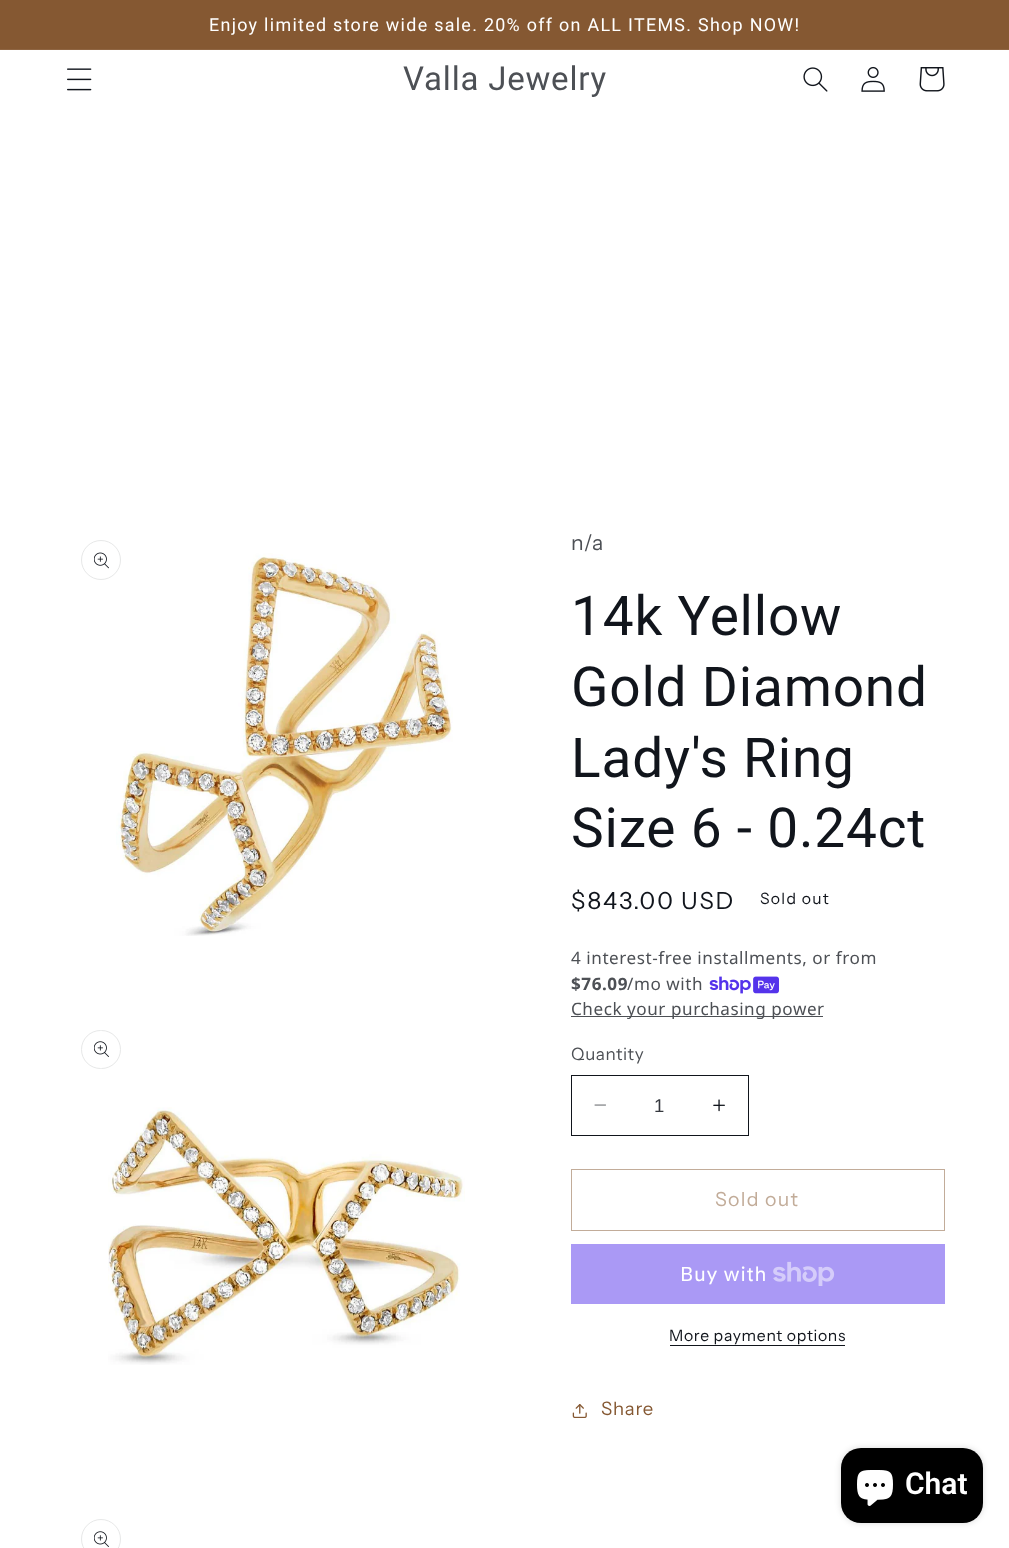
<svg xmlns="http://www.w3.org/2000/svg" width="1009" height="1548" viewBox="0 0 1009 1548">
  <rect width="100%" height="100%" fill="rgb(255,255,255)"/>
  <rect x="0" y="0" width="1009" height="49" fill="rgb(133,88,50)"/>
  <rect x="0" y="49" width="1009" height="1" fill="rgb(143,101,66)"/>
  <text x="209" y="31" font-family="Roboto" font-size="17.9" letter-spacing="1.3" fill="rgb(255,255,255)">Enjoy limited store wide sale. 20% off on ALL ITEMS. Shop NOW!</text>
  <image x="67" y="68" width="25" height="23" href="pic1.png"/>
  <text x="403" y="90" font-family="Roboto" font-size="33" letter-spacing="0.8" fill="rgb(77,80,85)">Valla Jewelry</text>
  <image x="803" y="67" width="25" height="25" href="pic2.png"/>
  <image x="861" y="66" width="24" height="26" href="pic3.png"/>
  <image x="919" y="67" width="26" height="25" href="pic4.png"/>
  <image x="116" y="553" width="337" height="383" href="pic6.png"/>
  <circle cx="101" cy="560" r="19.5" fill="none" stroke="rgb(231,232,232)"/>
  <image x="94" y="552" width="15" height="17" href="pic5.png"/>
  <rect x="81.5" y="1030.5" width="39" height="38" rx="19" fill="none" stroke="rgb(231,232,232)"/>
  <image x="94" y="1041" width="15" height="16" href="pic7.png"/>
  <image x="108" y="1107" width="357" height="258" href="pic8.png"/>
  <circle cx="101" cy="1539" r="19.5" fill="none" stroke="rgb(231,232,232)"/>
  <image x="94" y="1531" width="15" height="16" href="pic7.png"/>
  <text x="571" y="550" font-family="Instrument Sans" font-size="21" letter-spacing="0.75" fill="rgb(77,80,85)">n/a</text>
  <g font-family="Roboto" font-size="55" letter-spacing="0.8" fill="rgb(17,21,28)">
    <text>
      <tspan x="571" y="635">14k Yellow</tspan>
      <tspan x="571" y="706">Gold Diamond</tspan>
      <tspan x="571" y="777">Lady's Ring</tspan>
      <tspan x="571" y="847">Size 6 - 0.24ct</tspan>
    </text>
  </g>
  <text x="571" y="909" font-family="Instrument Sans" font-size="23.5" letter-spacing="1.75" fill="rgb(17,21,28)">$843.00 USD</text>
  <text x="760" y="904" font-family="Instrument Sans" font-size="15.75" letter-spacing="1.3" fill="rgb(17,21,28)">Sold out</text>
  <text x="571" y="964" font-family="Noto Sans" font-size="17.1" letter-spacing="0.55" fill="rgb(77,80,85)">4 interest-free installments, or from</text>
  <text x="571" y="990" font-family="Noto Sans" font-size="17.1" font-weight="bold" letter-spacing="0.55" fill="rgb(77,80,85)">$76.09</text>
  <text x="627" y="990" font-family="Noto Sans" font-size="17.1" letter-spacing="0.55" fill="rgb(77,80,85)">/mo with</text>
  <image x="709" y="976" width="70" height="18" href="pic9.png"/>
  <rect x="571" y="1016" width="252" height="1" fill="rgb(77,80,85)"/>
  <text x="571" y="1015" font-family="Noto Sans" font-size="17.1" letter-spacing="0.55" fill="rgb(77,80,85)">Check your purchasing power</text>
  <text x="571" y="1060" font-family="Instrument Sans" font-size="17.1" letter-spacing="0.55" fill="rgb(77,80,85)">Quantity</text>
  <image x="594" y="1104" width="12" height="2" href="pic10.png"/>
  <image x="713" y="1099" width="12" height="13" href="pic11.png"/>
  <rect x="571.5" y="1075.5" width="177" height="60" fill="none" stroke="rgb(17,21,28)"/>
  <text x="654" y="1112" font-family="Liberation Sans" font-size="18.5" fill="rgb(53,56,62)">1</text>
  <rect x="571.5" y="1169.5" width="373" height="61" fill="none" stroke="rgb(194,172,153)"/>
  <text x="715" y="1206" font-family="Instrument Sans" font-size="19.5" letter-spacing="1.3" fill="rgb(194,172,153)">Sold out</text>
  <rect x="571" y="1244" width="374" height="60" fill="rgb(170,153,245)"/>
  <text x="680" y="1281" font-family="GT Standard" font-size="20" letter-spacing="0.75" fill="rgb(255,255,255)">Buy with</text>
  <image x="773" y="1261" width="62" height="25" href="pic12.png"/>
  <text x="669" y="1341" font-family="Instrument Sans" font-size="15.75" letter-spacing="0.7" fill="rgb(17,21,28)">More payment options</text>
  <rect x="670" y="1345" width="175" height="1" fill="rgb(17,21,28)"/>
  <image x="572" y="1404" width="15" height="14" href="pic13.png"/>
  <text x="601" y="1415" font-family="Instrument Sans" font-size="18.5" letter-spacing="0.75" fill="rgb(133,88,50)">Share</text>
  <rect x="841" y="1448" width="142" height="75" rx="20" fill="rgba(0,0,0,0.15)" filter="blur(3px)"/>
  <rect x="841" y="1448" width="142" height="75" rx="20" fill="rgb(0,0,0)"/>
  <image x="857" y="1470" width="36" height="36" href="pic14.png"/>
  <text x="905" y="1494" font-family="Roboto" font-size="30" font-weight="600" fill="rgb(255,255,255)">Chat</text>
</svg>
